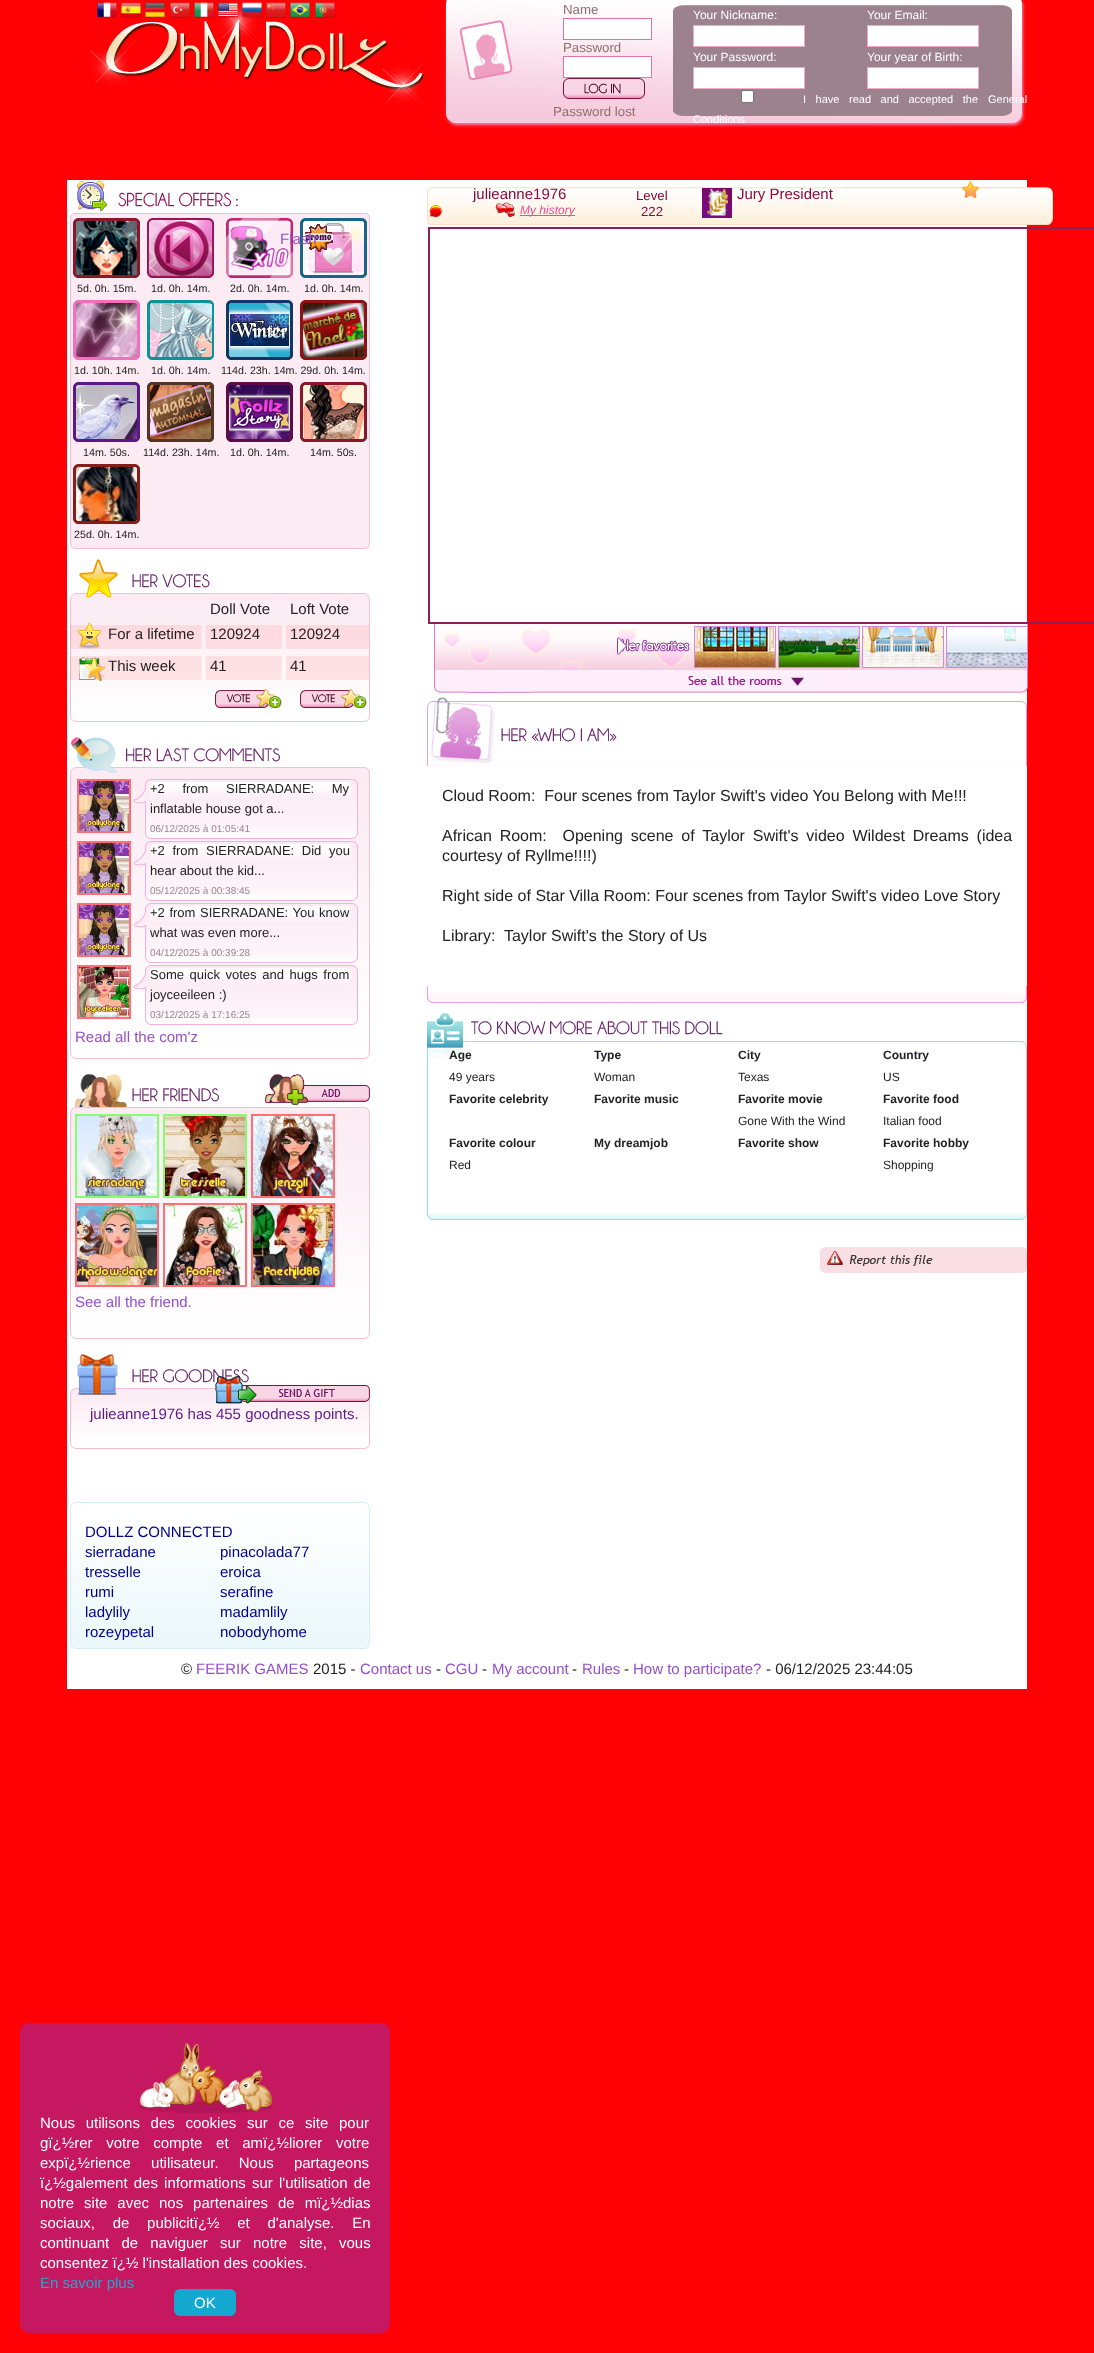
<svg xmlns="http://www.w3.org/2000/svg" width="1094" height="2353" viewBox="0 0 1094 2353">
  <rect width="100%" height="100%" fill="rgb(255,0,4)"/>
  <image x="72" y="0" width="356" height="103" href="pic1.png"/>
  <image x="97" y="2" width="20" height="16" href="pic2.png"/>
  <image x="121" y="2" width="20" height="16" href="pic3.png"/>
  <image x="145" y="2" width="20" height="16" href="pic4.png"/>
  <image x="170" y="2" width="20" height="16" href="pic5.png"/>
  <image x="194" y="2" width="20" height="16" href="pic6.png"/>
  <image x="218" y="2" width="20" height="16" href="pic7.png"/>
  <image x="242" y="2" width="20" height="16" href="pic8.png"/>
  <image x="266" y="2" width="20" height="16" href="pic9.png"/>
  <image x="290" y="2" width="20" height="16" href="pic10.png"/>
  <image x="315" y="2" width="20" height="16" href="pic11.png"/>
  <image x="444" y="0" width="582" height="128" href="pic12.png"/>
  <text x="563" y="14" font-family="Liberation Sans" font-size="13.25" fill="rgb(140,112,109)">Name</text>
  <rect x="563.5" y="18.5" width="88" height="21" fill="rgb(255,255,255)" stroke="rgb(232,113,163)"/>
  <text x="563" y="52" font-family="Liberation Sans" font-size="13.25" fill="rgb(140,112,109)">Password</text>
  <rect x="563.5" y="56.5" width="88" height="21" fill="rgb(255,255,255)" stroke="rgb(232,113,163)"/>
  <image x="563" y="78" width="82" height="21" href="pic13.png"/>
  <g font-family="Liberation Sans" font-size="12" fill="rgb(255,255,255)">
    <text x="693" y="19">Your Nickname:</text>
    <text x="867" y="19">Your Email:</text>
  </g>
  <rect x="693.5" y="25.5" width="111" height="21" fill="rgb(255,255,255)" stroke="rgb(242,169,200)"/>
  <rect x="867.5" y="25.5" width="111" height="21" fill="rgb(255,255,255)" stroke="rgb(242,169,200)"/>
  <g font-family="Liberation Sans" font-size="12" fill="rgb(255,255,255)">
    <text x="693" y="61">Your Password:</text>
    <text x="867" y="61">Your year of Birth:</text>
  </g>
  <rect x="693.5" y="67.5" width="111" height="21" fill="rgb(255,255,255)" stroke="rgb(242,169,200)"/>
  <rect x="867.5" y="67.5" width="111" height="21" fill="rgb(255,255,255)" stroke="rgb(242,169,200)"/>
  <rect x="741.5" y="90.5" width="12" height="12" rx="1.5" fill="rgb(255,255,255)" stroke="rgb(118,118,118)"/>
  <g font-family="Liberation Sans" font-size="11" fill="rgb(255,255,255)">
    <text x="803" y="103" word-spacing="6.5">I have read and accepted the</text>
    <text x="988" y="103">General</text>
    <text x="693" y="123">Conditions</text>
  </g>
  <text x="553" y="116" font-family="Liberation Sans" font-size="13.25" fill="rgb(140,112,109)">Password lost</text>
  <rect x="67" y="180" width="960" height="1509" fill="rgb(255,255,255)"/>
  <image x="70" y="181" width="300" height="37" href="pic14.png"/>
  <rect x="70.5" y="213.5" width="299" height="335" rx="4.5" fill="rgb(252,235,243)" stroke="rgb(245,190,213)"/>
  <image x="73" y="218" width="67" height="60" href="pic15.png"/>
  <text x="77" y="292" font-family="Liberation Sans" font-size="10.7" fill="rgb(34,34,34)">5d. 0h. 15m.</text>
  <image x="147" y="218" width="67" height="60" href="pic16.png"/>
  <text x="151" y="292" font-family="Liberation Sans" font-size="10.7" fill="rgb(34,34,34)">1d. 0h. 14m.</text>
  <image x="226" y="218" width="67" height="60" href="pic17.png"/>
  <text x="230" y="292" font-family="Liberation Sans" font-size="10.7" fill="rgb(34,34,34)">2d. 0h. 14m.</text>
  <image x="300" y="218" width="67" height="60" href="pic18.png"/>
  <text x="304" y="292" font-family="Liberation Sans" font-size="10.7" fill="rgb(34,34,34)">1d. 0h. 14m.</text>
  <image x="300" y="300" width="67" height="60" href="pic19.png"/>
  <image x="73" y="300" width="67" height="60" href="pic20.png"/>
  <text x="74" y="374" font-family="Liberation Sans" font-size="10.7" fill="rgb(34,34,34)">1d. 10h. 14m.</text>
  <image x="147" y="300" width="67" height="60" href="pic21.png"/>
  <text x="151" y="374" font-family="Liberation Sans" font-size="10.7" fill="rgb(34,34,34)">1d. 0h. 14m.</text>
  <image x="226" y="300" width="67" height="60" href="pic22.png"/>
  <text x="221" y="374" font-family="Liberation Sans" font-size="10.7" fill="rgb(34,34,34)">114d. 23h. 14m. 29d. 0h. 14m.</text>
  <image x="73" y="382" width="67" height="60" href="pic23.png"/>
  <text x="83" y="456" font-family="Liberation Sans" font-size="10.7" fill="rgb(34,34,34)">14m. 50s.</text>
  <image x="147" y="382" width="67" height="60" href="pic24.png"/>
  <text x="143" y="456" font-family="Liberation Sans" font-size="10.7" fill="rgb(34,34,34)">114d. 23h. 14m.</text>
  <image x="226" y="382" width="67" height="60" href="pic25.png"/>
  <text x="230" y="456" font-family="Liberation Sans" font-size="10.7" fill="rgb(34,34,34)">1d. 0h. 14m.</text>
  <image x="300" y="382" width="67" height="60" href="pic26.png"/>
  <text x="310" y="456" font-family="Liberation Sans" font-size="10.7" fill="rgb(34,34,34)">14m. 50s.</text>
  <image x="73" y="464" width="67" height="60" href="pic27.png"/>
  <text x="74" y="538" font-family="Liberation Sans" font-size="10.7" fill="rgb(34,34,34)">25d. 0h. 14m.</text>
  <image x="70" y="559" width="300" height="163" href="pic28.png"/>
  <g font-family="Liberation Sans" font-size="15" fill="rgb(34,34,34)">
    <text x="210" y="614">Doll Vote</text>
    <text x="290" y="614">Loft Vote</text>
    <text x="108" y="639">For a lifetime</text>
    <text x="210" y="639">120924</text>
    <text x="290" y="639">120924</text>
    <text x="108" y="671">This week</text>
    <text x="210" y="671">41</text>
    <text x="290" y="671">41</text>
  </g>
  <image x="215" y="689" width="67" height="19" href="pic29.png"/>
  <image x="300" y="689" width="67" height="19" href="pic29.png"/>
  <image x="70" y="737" width="300" height="322" href="pic30.png"/>
  <rect x="78" y="780" width="52" height="52" fill="none" stroke="rgb(255,111,117)" stroke-width="2"/>
  <image x="79" y="781" width="50" height="50" href="pic31.png"/>
  <image x="133" y="779" width="225" height="60" href="pic32.png"/>
  <g font-family="Liberation Sans" font-size="13" fill="rgb(34,34,34)">
    <text>
      <tspan x="150" y="793" word-spacing="14">+2 from SIERRADANE: My</tspan>
      <tspan x="150" y="813">inflatable house got a...</tspan>
    </text>
  </g>
  <text x="150" y="832" font-family="Liberation Sans" font-size="10" fill="rgb(153,133,144)">06/12/2025 à 01:05:41</text>
  <rect x="78" y="842" width="52" height="52" fill="none" stroke="rgb(255,111,117)" stroke-width="2"/>
  <image x="79" y="843" width="50" height="50" href="pic31.png"/>
  <image x="133" y="841" width="225" height="60" href="pic33.png"/>
  <g font-family="Liberation Sans" font-size="13" fill="rgb(34,34,34)">
    <text>
      <tspan x="150" y="855" word-spacing="4">+2 from SIERRADANE: Did you</tspan>
      <tspan x="150" y="875">hear about the kid...</tspan>
    </text>
  </g>
  <text x="150" y="894" font-family="Liberation Sans" font-size="10" fill="rgb(153,133,144)">05/12/2025 à 00:38:45</text>
  <rect x="78" y="904" width="52" height="52" fill="none" stroke="rgb(255,111,117)" stroke-width="2"/>
  <image x="79" y="905" width="50" height="50" href="pic31.png"/>
  <image x="133" y="903" width="225" height="60" href="pic34.png"/>
  <g font-family="Liberation Sans" font-size="13" fill="rgb(34,34,34)">
    <text>
      <tspan x="150" y="917" word-spacing="1">+2 from SIERRADANE: You know</tspan>
      <tspan x="150" y="937">what was even more...</tspan>
    </text>
  </g>
  <text x="150" y="956" font-family="Liberation Sans" font-size="10" fill="rgb(153,133,144)">04/12/2025 à 00:39:28</text>
  <rect x="78" y="966" width="52" height="52" fill="none" stroke="rgb(255,111,117)" stroke-width="2"/>
  <image x="79" y="967" width="50" height="50" href="pic35.png"/>
  <image x="133" y="965" width="225" height="60" href="pic36.png"/>
  <g font-family="Liberation Sans" font-size="13" fill="rgb(34,34,34)">
    <text>
      <tspan x="150" y="979" word-spacing="2">Some quick votes and hugs from</tspan>
      <tspan x="150" y="999">joyceeileen :)</tspan>
    </text>
  </g>
  <text x="150" y="1018" font-family="Liberation Sans" font-size="10" fill="rgb(153,133,144)">03/12/2025 à 17:16:25</text>
  <text x="75" y="1042" font-family="Liberation Sans" font-size="15" fill="rgb(150,79,204)">Read all the com'z</text>
  <image x="70" y="1074" width="300" height="265" href="pic37.png"/>
  <image x="265" y="1074" width="105" height="31" href="pic38.png"/>
  <rect x="76" y="1115" width="82" height="82" fill="none" stroke="rgb(132,255,111)" stroke-width="2"/>
  <rect x="164" y="1115" width="82" height="82" fill="none" stroke="rgb(132,255,111)" stroke-width="2"/>
  <rect x="252" y="1115" width="82" height="82" fill="none" stroke="rgb(255,111,117)" stroke-width="2"/>
  <image x="77" y="1116" width="80" height="80" href="pic39.png"/>
  <image x="165" y="1116" width="80" height="80" href="pic40.png"/>
  <image x="253" y="1116" width="80" height="80" href="pic41.png"/>
  <rect x="76" y="1204" width="82" height="82" fill="none" stroke="rgb(255,111,117)" stroke-width="2"/>
  <rect x="164" y="1204" width="82" height="82" fill="none" stroke="rgb(255,111,117)" stroke-width="2"/>
  <rect x="252" y="1204" width="82" height="82" fill="none" stroke="rgb(255,111,117)" stroke-width="2"/>
  <image x="77" y="1205" width="80" height="80" href="pic42.png"/>
  <image x="165" y="1205" width="80" height="80" href="pic43.png"/>
  <image x="253" y="1205" width="80" height="80" href="pic44.png"/>
  <text x="75" y="1307" font-family="Liberation Sans" font-size="15" fill="rgb(150,79,204)">See all the friend.</text>
  <image x="70" y="1354" width="300" height="95" href="pic45.png"/>
  <image x="215" y="1376" width="155" height="28" href="pic46.png"/>
  <text x="90" y="1419" font-family="Liberation Sans" font-size="15" fill="rgb(94,25,139)">julieanne1976 has 455 goodness points.</text>
  <image x="70" y="1502" width="300" height="147" href="pic47.png"/>
  <g font-family="Liberation Sans" font-size="15" fill="rgb(0,0,139)">
    <text>
      <tspan x="85" y="1537">DOLLZ CONNECTED</tspan>
      <tspan x="85" y="1557">sierradane</tspan>
    </text>
    <text x="220" y="1557">pinacolada77</text>
    <text x="85" y="1577">tresselle</text>
    <text x="220" y="1577">eroica</text>
    <text x="85" y="1597">rumi</text>
    <text x="220" y="1597">serafine</text>
    <text x="85" y="1617">ladylily</text>
    <text x="220" y="1617">madamlily</text>
    <text x="85" y="1637">rozeypetal</text>
    <text x="220" y="1637">nobodyhome</text>
  </g>
  <image x="841" y="187" width="184" height="1" href="pic48.png"/>
  <image x="427" y="187" width="626" height="38" href="pic49.png"/>
  <image x="429" y="205" width="13" height="13" href="pic50.png"/>
  <text x="473" y="199" font-family="Liberation Sans" font-size="15" fill="rgb(140,9,59)">julieanne1976</text>
  <g font-family="Liberation Sans" font-size="13.25" fill="rgb(140,9,59)">
    <text x="636" y="200">Level</text>
    <text x="641" y="216">222</text>
  </g>
  <image x="702" y="188" width="30" height="30" href="pic51.png"/>
  <text x="737" y="199" font-family="Liberation Sans" font-size="15" fill="rgb(140,9,59)">Jury President</text>
  <image x="962" y="181" width="17" height="17" href="pic52.png"/>
  <image x="495" y="202" width="20" height="16" href="pic53.png"/>
  <rect x="520" y="215" width="55" height="1" fill="rgb(237,76,143)"/>
  <text x="520" y="214" font-family="Liberation Sans" font-size="12" font-style="italic" fill="rgb(237,76,143)">My history</text>
  <rect x="429" y="228" width="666" height="395" fill="none" stroke="rgb(143,32,85)" stroke-width="2"/>
  <text x="280" y="244" font-family="Liberation Sans" font-size="15" fill="rgb(150,79,204)">Flash</text>
  <image x="434" y="624" width="594" height="46" href="pic54.png"/>
  <image x="621" y="639" width="69" height="13" href="pic56.png"/>
  <image x="617" y="637" width="10" height="18" href="pic55.png"/>
  <image x="695" y="627" width="80" height="40" href="pic57.png"/>
  <rect x="694.5" y="626.5" width="81" height="41" fill="none" stroke="rgb(211,135,223)"/>
  <image x="779" y="627" width="80" height="40" href="pic58.png"/>
  <rect x="778.5" y="626.5" width="81" height="41" fill="none" stroke="rgb(211,135,223)"/>
  <image x="863" y="627" width="80" height="40" href="pic59.png"/>
  <rect x="862.5" y="626.5" width="81" height="41" fill="none" stroke="rgb(211,135,223)"/>
  <image x="947" y="627" width="80" height="40" href="pic60.png"/>
  <rect x="946.5" y="626.5" width="81" height="41" fill="none" stroke="rgb(211,135,223)"/>
  <image x="434" y="670" width="594" height="23" href="pic61.png"/>
  <image x="427" y="697" width="600" height="69" href="pic62.png"/>
  <g font-family="Liberation Sans" font-size="16" fill="rgb(34,34,34)">
    <text x="442" y="801" xml:space="preserve">Cloud Room:  Four scenes from Taylor Swift's video You Belong with Me!!!</text>
    <text xml:space="preserve"><tspan x="442" y="841" word-spacing="3.4">African Room:  Opening scene of Taylor Swift's video Wildest Dreams (idea</tspan><tspan x="442" y="861">courtesy of Ryllme!!!!)</tspan></text>
    <text x="442" y="901">Right side of Star Villa Room: Four scenes from Taylor Swift's video Love Story</text>
    <text x="442" y="941" xml:space="preserve">Library:  Taylor Swift's the Story of Us</text>
  </g>
  <image x="427" y="986" width="600" height="17" href="pic63.png"/>
  <image x="427" y="1013" width="600" height="207" href="pic64.png"/>
  <g font-family="Liberation Sans" font-size="12" font-weight="bold" fill="rgb(34,34,34)">
    <text x="449" y="1059">Age</text>
    <text x="594" y="1059">Type</text>
    <text x="738" y="1059">City</text>
    <text x="883" y="1059">Country</text>
  </g>
  <g font-family="Liberation Sans" font-size="12" fill="rgb(34,34,34)">
    <text x="449" y="1081">49 years</text>
    <text x="594" y="1081">Woman</text>
    <text x="738" y="1081">Texas</text>
    <text x="883" y="1081">US</text>
  </g>
  <g font-family="Liberation Sans" font-size="12" font-weight="bold" fill="rgb(34,34,34)">
    <text x="449" y="1103">Favorite celebrity</text>
    <text x="594" y="1103">Favorite music</text>
    <text x="738" y="1103">Favorite movie</text>
    <text x="883" y="1103">Favorite food</text>
  </g>
  <g font-family="Liberation Sans" font-size="12" fill="rgb(34,34,34)">
    <text x="738" y="1125">Gone With the Wind</text>
    <text x="883" y="1125">Italian food</text>
  </g>
  <g font-family="Liberation Sans" font-size="12" font-weight="bold" fill="rgb(34,34,34)">
    <text x="449" y="1147">Favorite colour</text>
    <text x="594" y="1147">My dreamjob</text>
    <text x="738" y="1147">Favorite show</text>
    <text x="883" y="1147">Favorite hobby</text>
  </g>
  <g font-family="Liberation Sans" font-size="12" fill="rgb(34,34,34)">
    <text x="449" y="1169">Red</text>
    <text x="883" y="1169">Shopping</text>
  </g>
  <image x="820" y="1247" width="207" height="26" href="pic65.png"/>
  <text x="181" y="1674" font-family="Liberation Sans" font-size="15" fill="rgb(34,34,34)">©</text>
  <text x="196" y="1674" font-family="Liberation Sans" font-size="15" fill="rgb(150,79,204)">FEERIK GAMES</text>
  <text x="313" y="1674" font-family="Liberation Sans" font-size="15" fill="rgb(34,34,34)">2015 -</text>
  <text x="360" y="1674" font-family="Liberation Sans" font-size="15" fill="rgb(150,79,204)">Contact us</text>
  <text x="436" y="1674" font-family="Liberation Sans" font-size="15" fill="rgb(34,34,34)">-</text>
  <text x="445" y="1674" font-family="Liberation Sans" font-size="15" fill="rgb(150,79,204)">CGU</text>
  <text x="482" y="1674" font-family="Liberation Sans" font-size="15" fill="rgb(34,34,34)">-</text>
  <text x="492" y="1674" font-family="Liberation Sans" font-size="15" fill="rgb(150,79,204)">My account</text>
  <text x="572" y="1674" font-family="Liberation Sans" font-size="15" fill="rgb(34,34,34)">-</text>
  <text x="582" y="1674" font-family="Liberation Sans" font-size="15" fill="rgb(150,79,204)">Rules</text>
  <text x="624" y="1674" font-family="Liberation Sans" font-size="15" fill="rgb(34,34,34)">-</text>
  <text x="633" y="1674" font-family="Liberation Sans" font-size="15" fill="rgb(150,79,204)">How to participate?</text>
  <text x="766" y="1674" font-family="Liberation Sans" font-size="15" fill="rgb(34,34,34)">- 06/12/2025 23:44:05</text>
  <rect x="20" y="2023" width="370" height="310" rx="9" fill="rgb(198,24,97)"/>
  <image x="139" y="2043" width="133" height="70" href="pic66.png"/>
  <g font-family="Liberation Sans" font-size="15" fill="rgb(255,255,255)">
    <text>
      <tspan x="40" y="2128" word-spacing="6.5">Nous utilisons des cookies sur ce site pour</tspan>
      <tspan x="40" y="2148" word-spacing="9.5">gï¿½rer votre compte et amï¿½liorer votre</tspan>
      <tspan x="40" y="2168" word-spacing="16">expï¿½rience utilisateur. Nous partageons</tspan>
      <tspan x="40" y="2188" word-spacing="2">ï¿½galement des informations sur l'utilisation de</tspan>
      <tspan x="40" y="2208" word-spacing="5.75">notre site avec nos partenaires de mï¿½dias</tspan>
      <tspan x="40" y="2228" word-spacing="13.5">sociaux, de publicitï¿½ et d'analyse. En</tspan>
      <tspan x="40" y="2248" word-spacing="8">continuant de naviguer sur notre site, vous</tspan>
      <tspan x="40" y="2268">consentez ï¿½ l'installation des cookies.</tspan>
    </text>
  </g>
  <text x="40" y="2288" font-family="Liberation Sans" font-size="15" fill="rgb(35,167,209)">En savoir plus</text>
  <rect x="174" y="2289" width="62" height="27" rx="6" fill="rgb(20,167,208)"/>
  <text x="194" y="2308" font-family="Liberation Sans" font-size="15" fill="rgb(255,255,255)">OK</text>
</svg>
